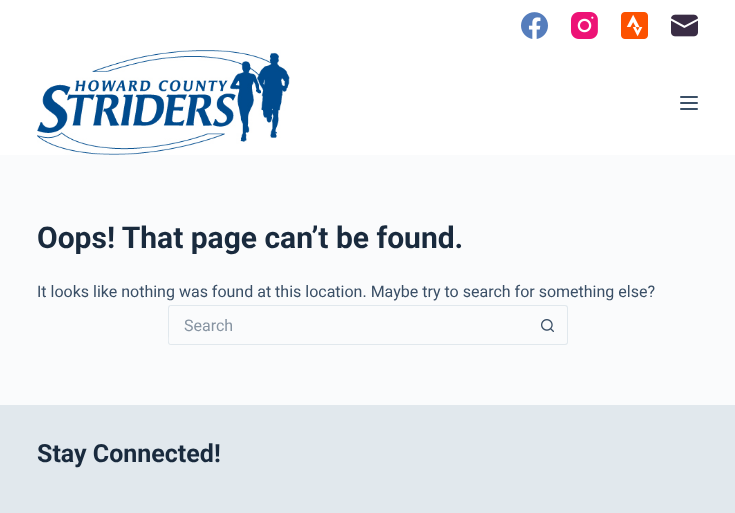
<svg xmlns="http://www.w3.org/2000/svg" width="735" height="513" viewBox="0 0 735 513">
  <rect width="100%" height="100%" fill="rgb(250,251,252)"/>
  <rect x="0" y="0" width="735" height="155" fill="rgb(255,255,255)"/>
  <image x="37" y="50" width="253" height="105" href="pic1.png"/>
  <rect x="680" y="96" width="18" height="2" rx="1" fill="rgb(58,79,102)"/>
  <rect x="680" y="102" width="18" height="2" rx="1" fill="rgb(58,79,102)"/>
  <rect x="680" y="108" width="18" height="2" rx="1" fill="rgb(58,79,102)"/>
  <image x="521" y="12" width="27" height="27" href="pic2.png"/>
  <image x="571" y="12" width="27" height="27" href="pic3.png"/>
  <image x="621" y="12" width="27" height="27" href="pic4.png"/>
  <image x="671" y="14" width="27" height="23" href="pic5.png"/>
  <text x="37" y="248" font-family="Roboto" font-size="30" font-weight="bold" fill="rgb(25,42,61)">Oops! That page can’t be found.</text>
  <text x="37" y="297" font-family="Roboto" font-size="16" fill="rgb(58,79,102)">It looks like nothing was found at this location. Maybe try to search for something else?</text>
  <path d="M171 305H528V345H171C169 345 168 344 168 342V308C168 306 169 305 171 305ZM171 306H528V344H170C168 342 169 337 169 336V308L170 306Z" fill="rgb(225,232,237)" fill-rule="evenodd"/>
  <text x="184" y="331" font-family="Roboto" font-size="16" fill="rgb(135,148,162)">Search</text>
  <path d="M528 305H565C567 305 568 306 568 308V342C568 344 567 345 565 345H528ZM528 306H565C566 306 567 307 567 308V342C567 343 566 344 565 344H528Z" fill="rgb(225,232,237)" fill-rule="evenodd"/>
  <image x="541" y="319" width="13" height="13" href="pic6.png"/>
  <path d="M540.5 328.5C538.5 325 539.5 320.5 543.5 318.5" fill="none" stroke="rgb(250,251,252)" stroke-width="1.5" stroke-linecap="round"/>
  <rect x="0" y="405" width="735" height="108" fill="rgb(225,232,237)"/>
  <text x="37" y="462" font-family="Roboto" font-size="25" font-weight="bold" fill="rgb(25,42,61)">Stay Connected!</text>
</svg>
